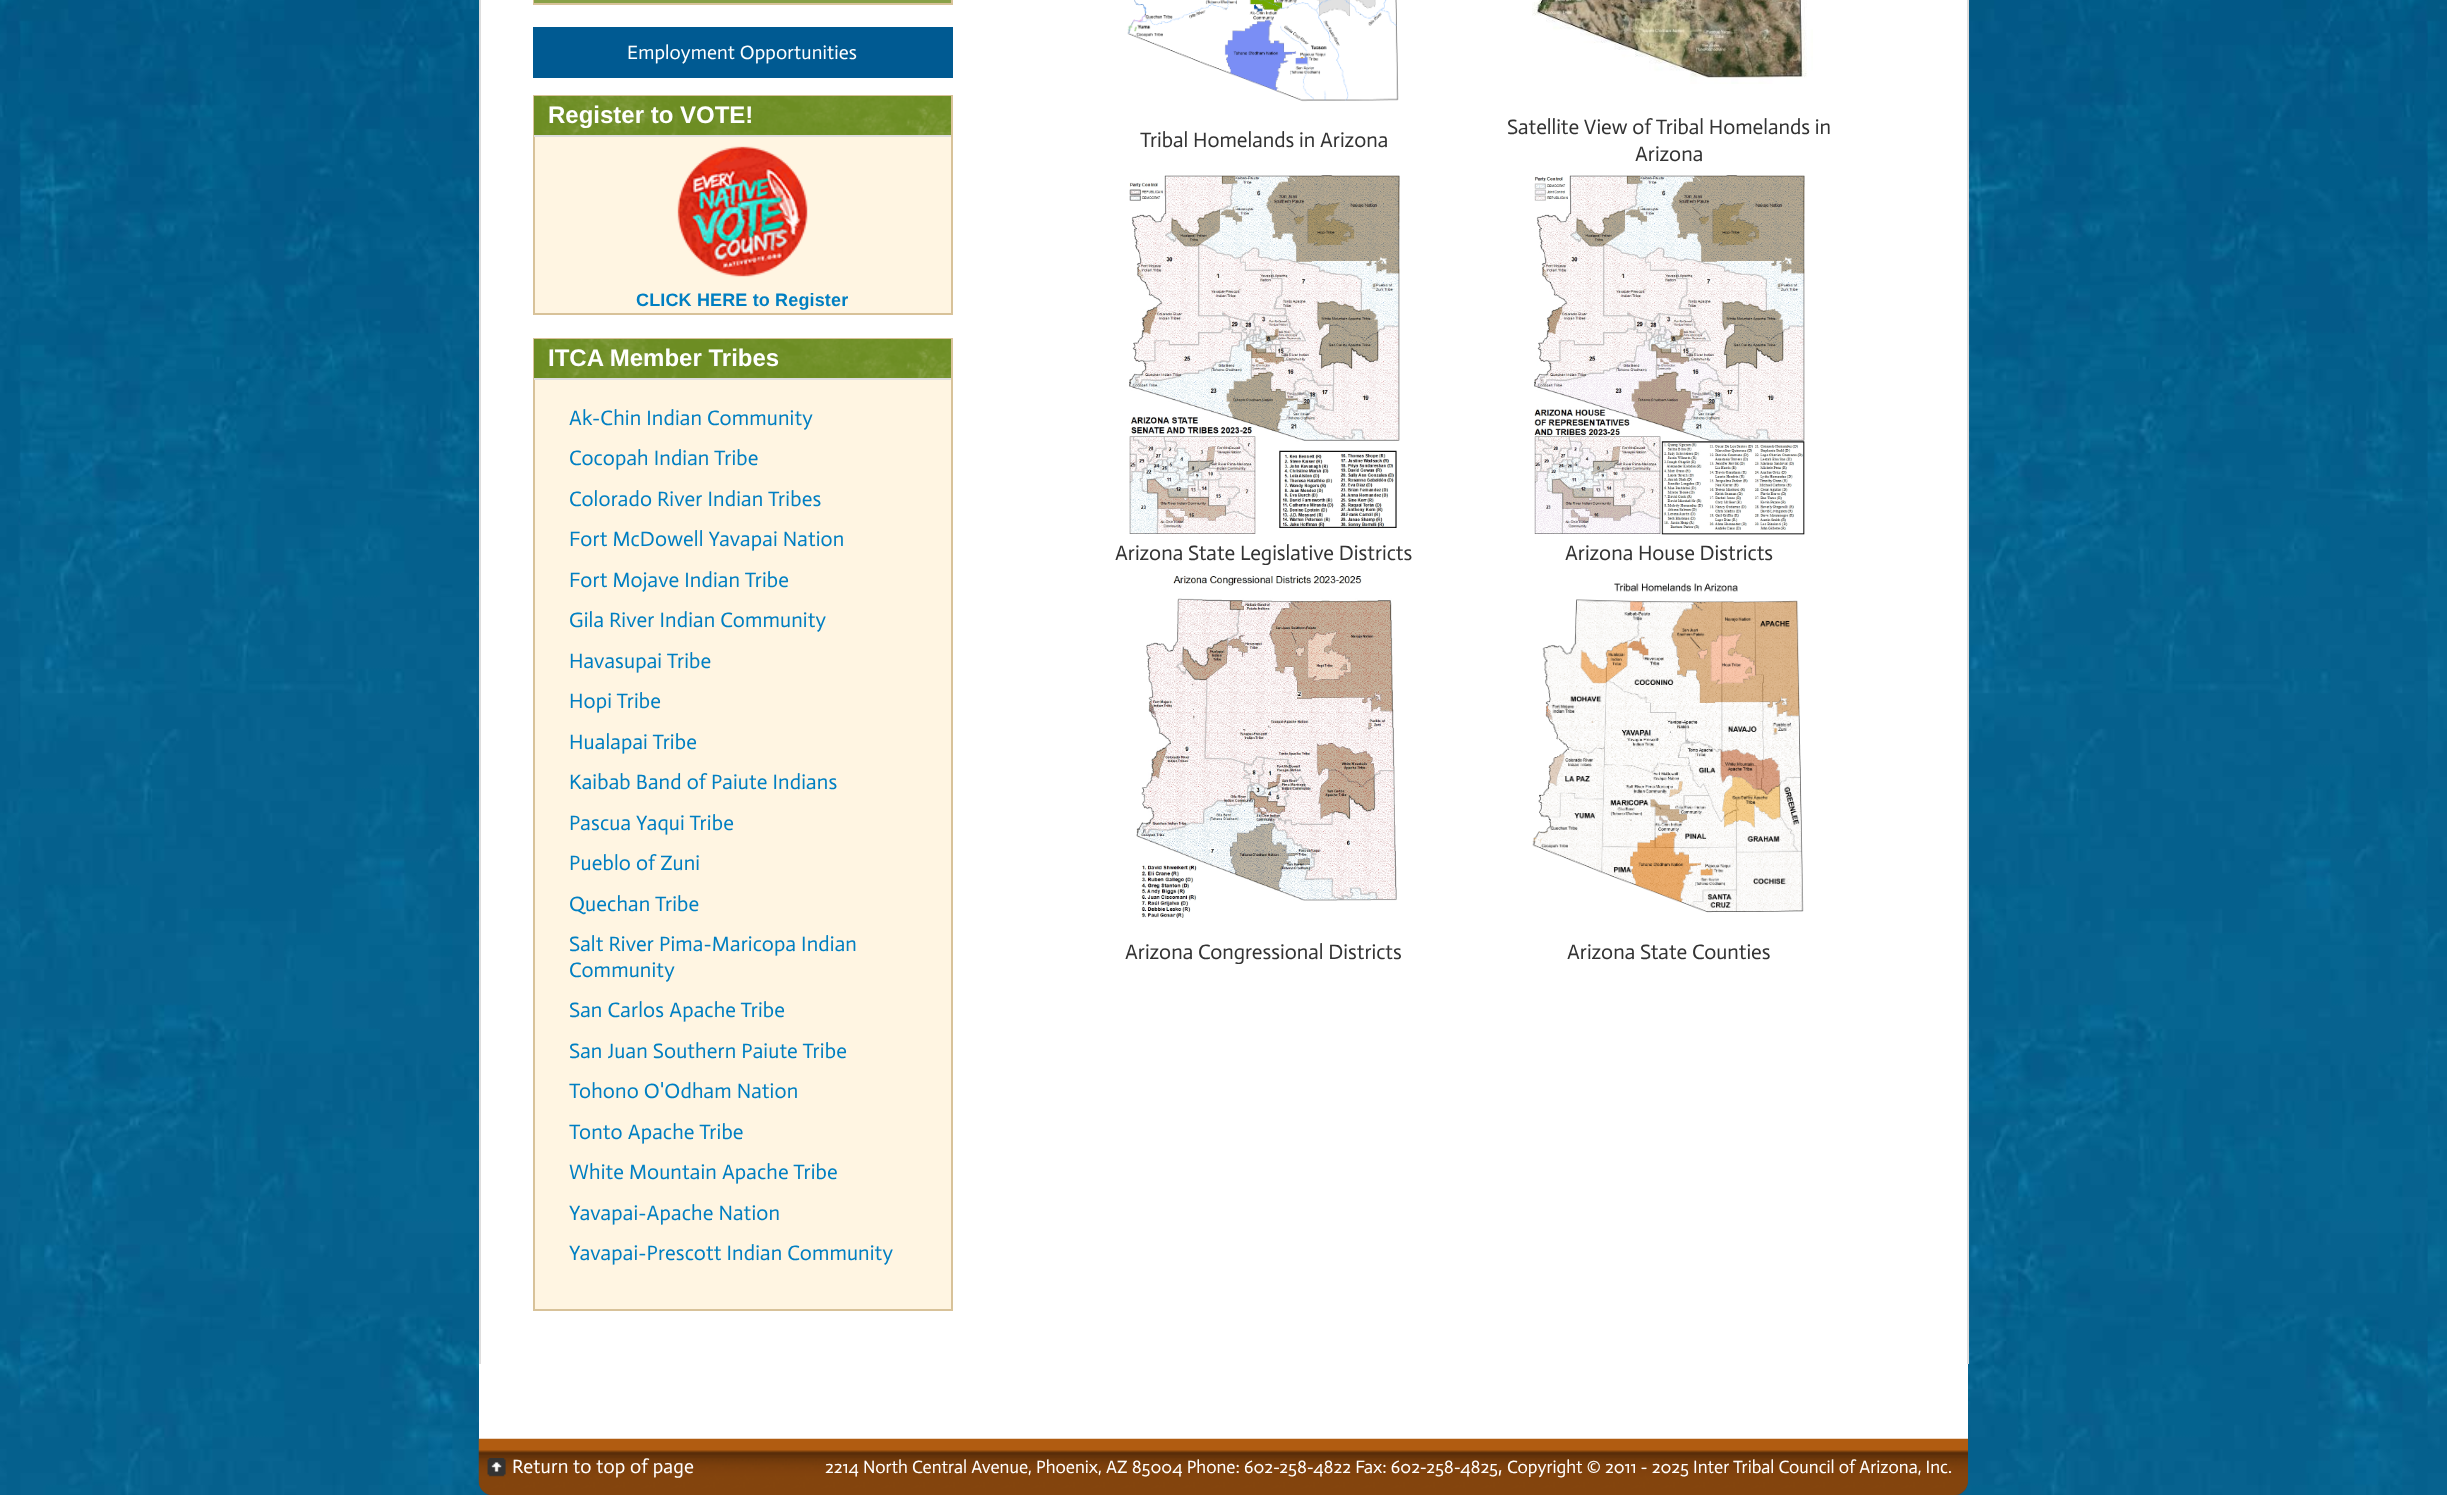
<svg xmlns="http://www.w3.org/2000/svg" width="2447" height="1495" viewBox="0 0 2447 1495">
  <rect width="100%" height="100%" fill="rgb(255,255,255)"/>
  <image x="0" y="0" width="2447" height="1495" href="pic1.png"/>
  <rect x="481" y="0" width="1486" height="1364" fill="rgb(255,255,255)"/>
  <rect x="1967" y="0" width="2" height="1364" fill="rgb(221,221,221)"/>
  <rect x="479" y="0" width="2" height="1364" fill="rgb(221,221,221)"/>
  <rect x="534" y="-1" width="418" height="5" fill="none" stroke="rgb(216,194,153)" stroke-width="2"/>
  <rect x="534" y="0" width="417" height="3" fill="rgb(137,161,72)"/>
  <rect x="533" y="27" width="420" height="51" fill="rgb(0,90,146)"/>
  <text x="627" y="59" font-family="Actor" font-size="19.5" letter-spacing="0.15" fill="rgb(255,255,255)">Employment Opportunities</text>
  <rect x="535" y="137" width="416" height="176" fill="rgb(255,245,226)"/>
  <rect x="534" y="96" width="418" height="218" fill="none" stroke="rgb(216,194,153)" stroke-width="2"/>
  <image x="534" y="96" width="417" height="39" href="pic2.png"/>
  <rect x="534" y="135" width="417" height="2" fill="rgb(221,221,221)"/>
  <text x="548" y="123" font-family="Liberation Sans" font-size="24" font-weight="bold" fill="rgb(255,255,255)">Register to VOTE!</text>
  <image x="677" y="146" width="131" height="131" href="pic3.png"/>
  <text x="636" y="306" font-family="Liberation Sans" font-size="18" font-weight="bold" letter-spacing="0.15" fill="rgb(0,127,194)">CLICK HERE to Register</text>
  <rect x="535" y="380" width="416" height="929" fill="rgb(255,245,226)"/>
  <rect x="534" y="339" width="418" height="971" fill="none" stroke="rgb(216,194,153)" stroke-width="2"/>
  <image x="534" y="339" width="417" height="39" href="pic2.png"/>
  <rect x="534" y="378" width="417" height="2" fill="rgb(221,221,221)"/>
  <text x="548" y="366" font-family="Liberation Sans" font-size="24" font-weight="bold" fill="rgb(255,255,255)">ITCA Member Tribes</text>
  <g font-family="Actor" font-size="21" letter-spacing="0.15" fill="rgb(0,127,194)">
    <text>
      <tspan x="569" y="425">Ak-Chin Indian Community</tspan>
      <tspan x="569" y="465">Cocopah Indian Tribe</tspan>
      <tspan x="569" y="506">Colorado River Indian Tribes</tspan>
      <tspan x="569" y="546">Fort McDowell Yavapai Nation</tspan>
      <tspan x="569" y="587">Fort Mojave Indian Tribe</tspan>
      <tspan x="569" y="627">Gila River Indian Community</tspan>
      <tspan x="569" y="668">Havasupai Tribe</tspan>
      <tspan x="569" y="708">Hopi Tribe</tspan>
      <tspan x="569" y="749">Hualapai Tribe</tspan>
      <tspan x="569" y="789">Kaibab Band of Paiute Indians</tspan>
      <tspan x="569" y="830">Pascua Yaqui Tribe</tspan>
      <tspan x="569" y="870">Pueblo of Zuni</tspan>
      <tspan x="569" y="911">Quechan Tribe</tspan>
      <tspan x="569" y="951">Salt River Pima-Maricopa Indian</tspan>
      <tspan x="569" y="977">Community</tspan>
      <tspan x="569" y="1017">San Carlos Apache Tribe</tspan>
      <tspan x="569" y="1058">San Juan Southern Paiute Tribe</tspan>
      <tspan x="569" y="1098">Tohono O'Odham Nation</tspan>
      <tspan x="569" y="1139">Tonto Apache Tribe</tspan>
      <tspan x="569" y="1179">White Mountain Apache Tribe</tspan>
      <tspan x="569" y="1220">Yavapai-Apache Nation</tspan>
      <tspan x="569" y="1260">Yavapai-Prescott Indian Community</tspan>
    </text>
  </g>
  <image x="1127" y="0" width="272" height="102" href="pic4.png"/>
  <text x="1140" y="147" font-family="Actor" font-size="21" fill="rgb(51,51,51)">Tribal Homelands in Arizona</text>
  <image x="1532" y="0" width="281" height="84" href="pic5.png"/>
  <g font-family="Actor" font-size="21" fill="rgb(51,51,51)">
    <text x="1507" y="134">Satellite View of Tribal Homelands in</text>
    <text x="1635" y="161">Arizona</text>
  </g>
  <image x="1129" y="175" width="271" height="359" href="pic6.png"/>
  <text x="1115" y="560" font-family="Actor" font-size="21" fill="rgb(51,51,51)">Arizona State Legislative Districts</text>
  <image x="1534" y="175" width="271" height="360" href="pic7.png"/>
  <text x="1565" y="560" font-family="Actor" font-size="21" fill="rgb(51,51,51)">Arizona House Districts</text>
  <image x="1136" y="576" width="261" height="342" href="pic8.png"/>
  <text x="1125" y="959" font-family="Actor" font-size="21" fill="rgb(51,51,51)">Arizona Congressional Districts</text>
  <image x="1532" y="583" width="272" height="330" href="pic9.png"/>
  <text x="1567" y="959" font-family="Actor" font-size="21" fill="rgb(51,51,51)">Arizona State Counties</text>
  <rect x="479" y="1364" width="1489" height="75" fill="rgb(255,255,255)"/>
  <path d="M479 1439H1968V1481C1968 1489.5 1961.5 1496 1953 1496H494C485.5 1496 479 1489.5 479 1481Z" fill="rgb(73,73,73)"/>
  <image x="478" y="1438" width="1490" height="57" href="pic10.png"/>
  <image x="487" y="1458" width="19" height="19" href="pic11.png"/>
  <text x="512" y="1473" font-family="Actor" font-size="19.5" letter-spacing="0.15" fill="rgb(255,255,255)">Return to top of page</text>
  <text x="825" y="1473" font-family="Actor" font-size="18" fill="rgb(255,255,255)">2214 North Central Avenue, Phoenix, AZ 85004 Phone: 602-258-4822 Fax: 602-258-4825</text>
  <text x="1498" y="1473" font-family="Actor" font-size="21" fill="rgb(255,255,255)">,</text>
  <text x="1507" y="1473" font-family="Actor" font-size="18" fill="rgb(255,255,255)">Copyright © 2011 - 2025 Inter Tribal Council of Arizona, Inc.</text>
</svg>
